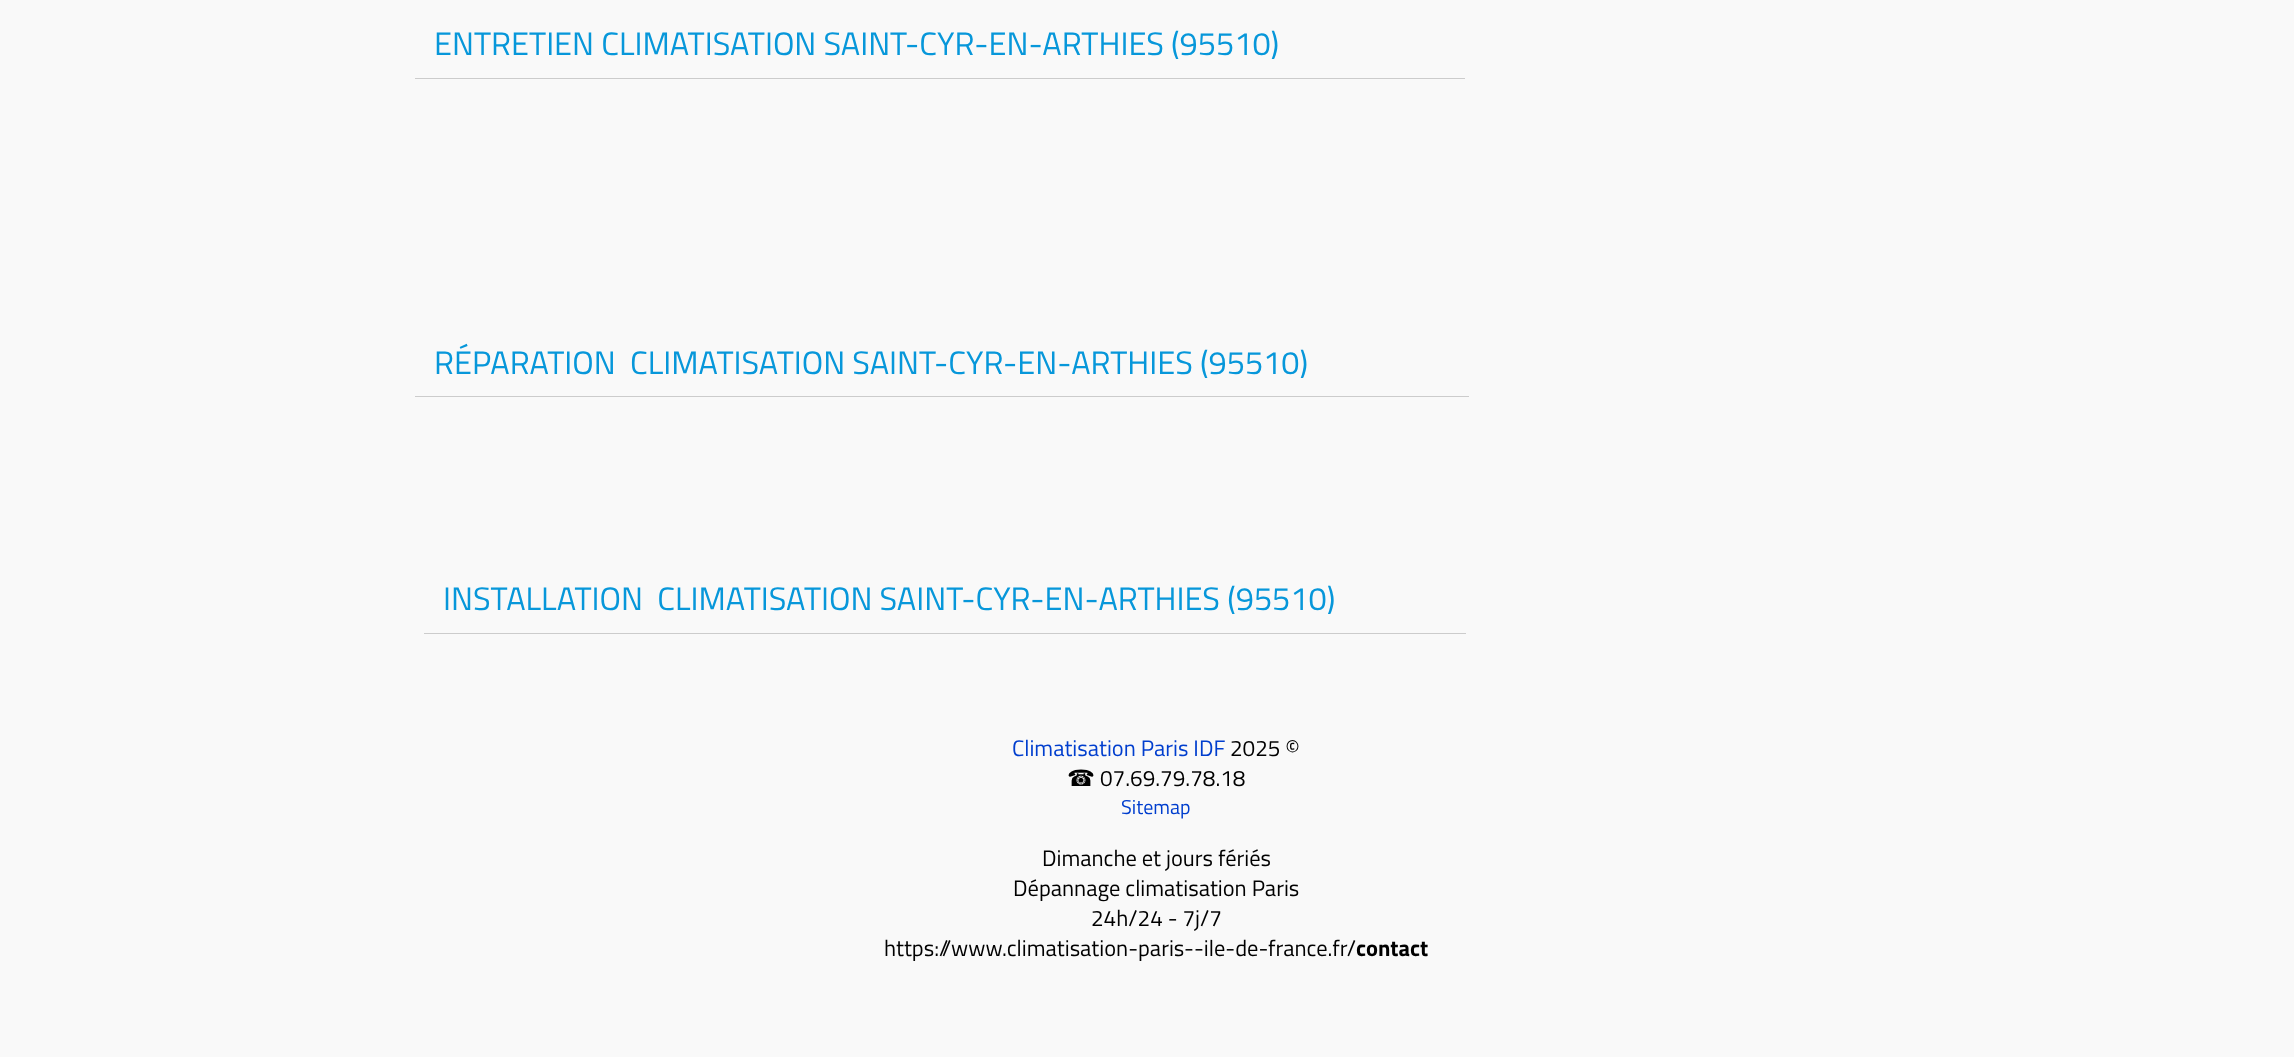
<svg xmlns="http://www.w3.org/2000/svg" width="2294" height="1057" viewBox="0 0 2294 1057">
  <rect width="100%" height="100%" fill="rgb(249,249,249)"/>
  <rect x="415" y="78" width="1050" height="1" fill="rgb(204,204,204)"/>
  <text x="434" y="55" font-family="Titillium Web" font-size="32.5" fill="rgb(7,151,218)">ENTRETIEN CLIMATISATION SAINT-CYR-EN-ARTHIES (95510)</text>
  <rect x="415" y="396" width="1054" height="1" fill="rgb(204,204,204)"/>
  <text x="434" y="374" font-family="Titillium Web" font-size="32.5" fill="rgb(7,151,218)" xml:space="preserve">RÉPARATION  CLIMATISATION SAINT-CYR-EN-ARTHIES (95510)</text>
  <rect x="424" y="633" width="1042" height="1" fill="rgb(204,204,204)"/>
  <text x="443" y="610" font-family="Titillium Web" font-size="32.5" fill="rgb(7,151,218)" xml:space="preserve">INSTALLATION  CLIMATISATION SAINT-CYR-EN-ARTHIES (95510)</text>
  <text x="1012" y="756" font-family="Titillium Web" font-size="22.5" fill="rgb(0,62,206)">Climatisation Paris IDF</text>
  <text x="1230" y="756" font-family="Titillium Web" font-size="22.5" fill="rgb(0,0,0)">2025 ©</text>
  <text x="1067" y="786" font-family="DejaVu Sans" font-size="22.5" fill="rgb(0,0,0)">☎︎</text>
  <text x="1100" y="786" font-family="Titillium Web" font-size="22.5" fill="rgb(0,0,0)">07.69.79.78.18</text>
  <text x="1121" y="814" font-family="Titillium Web" font-size="20" fill="rgb(0,62,206)">Sitemap</text>
  <g font-family="Titillium Web" font-size="22.5" fill="rgb(0,0,0)">
    <text x="1042" y="866">Dimanche et jours fériés</text>
    <text x="1013" y="896">Dépannage climatisation Paris</text>
    <text x="1091" y="926">24h/24 - 7j/7</text>
    <text x="884" y="956">https://www.climatisation-paris--ile-de-france.fr/</text>
  </g>
  <text x="1356" y="956" font-family="Titillium Web" font-size="22.5" font-weight="bold" fill="rgb(0,0,0)">contact</text>
</svg>
